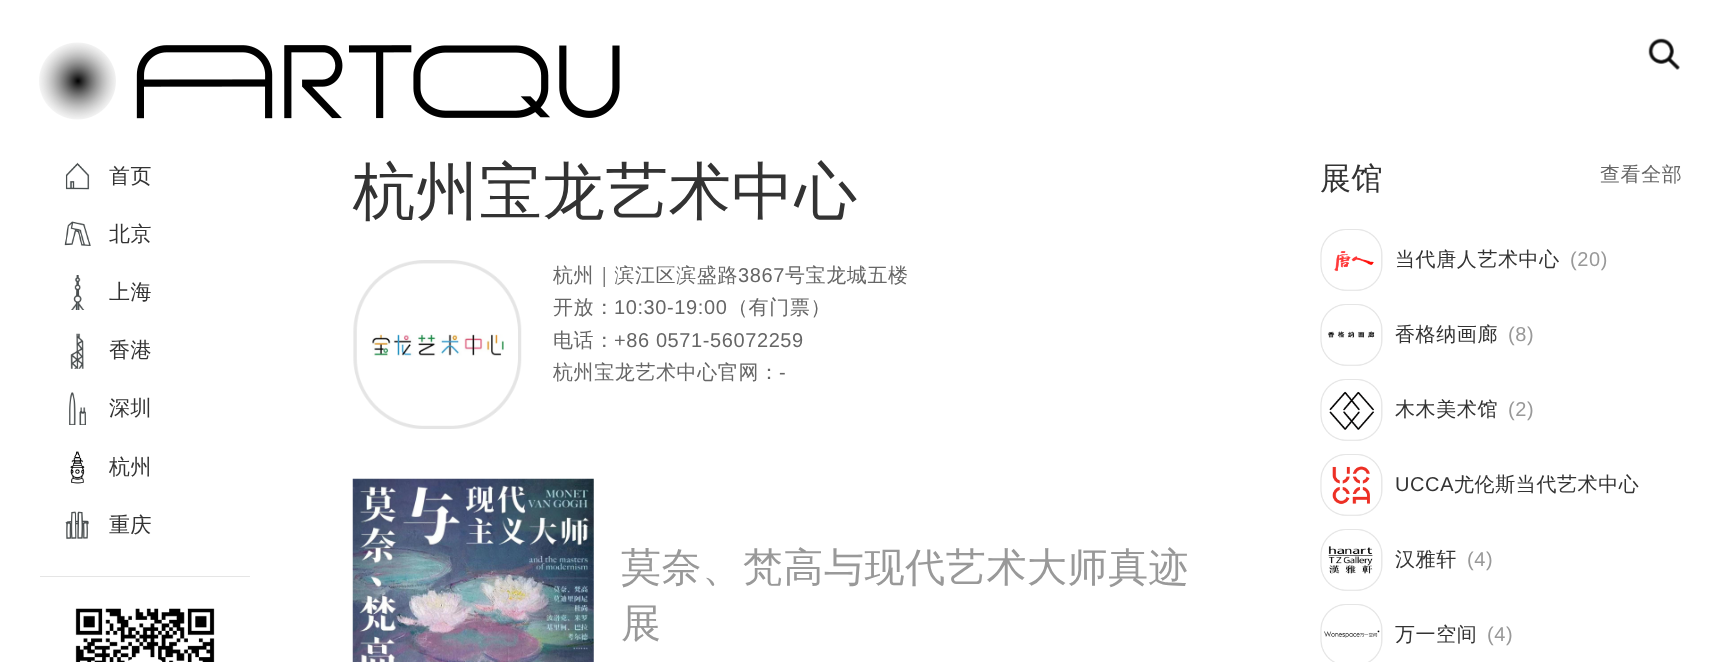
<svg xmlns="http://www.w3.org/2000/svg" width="1722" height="662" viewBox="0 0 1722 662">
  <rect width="100%" height="100%" fill="rgb(255,255,255)"/>
  <image x="39" y="42" width="581" height="78" href="pic1.png"/>
  <image x="1648" y="38" width="32" height="32" href="pic2.png"/>
  <image x="1648" y="38" width="32" height="32" href="pic3.png"/>
  <image x="65" y="162" width="25" height="28" href="pic4.png"/>
  <text x="109" y="183" font-family="WenQuanYi Zen Hei" font-size="21" font-weight="500" letter-spacing="0.6" fill="rgb(51,51,51)">首页</text>
  <image x="64" y="221" width="27" height="25" href="pic5.png"/>
  <text x="109" y="241" font-family="WenQuanYi Zen Hei" font-size="21" font-weight="500" letter-spacing="0.6" fill="rgb(51,51,51)">北京</text>
  <image x="71" y="275" width="14" height="35" href="pic6.png"/>
  <text x="109" y="299" font-family="WenQuanYi Zen Hei" font-size="21" font-weight="500" letter-spacing="0.6" fill="rgb(51,51,51)">上海</text>
  <image x="70" y="333" width="14" height="36" href="pic7.png"/>
  <text x="109" y="357" font-family="WenQuanYi Zen Hei" font-size="21" font-weight="500" letter-spacing="0.6" fill="rgb(51,51,51)">香港</text>
  <image x="69" y="392" width="17" height="33" href="pic8.png"/>
  <text x="109" y="415" font-family="WenQuanYi Zen Hei" font-size="21" font-weight="500" letter-spacing="0.6" fill="rgb(51,51,51)">深圳</text>
  <image x="70" y="451" width="15" height="33" href="pic9.png"/>
  <text x="109" y="474" font-family="WenQuanYi Zen Hei" font-size="21" font-weight="500" letter-spacing="0.6" fill="rgb(51,51,51)">杭州</text>
  <image x="65" y="511" width="24" height="29" href="pic10.png"/>
  <text x="109" y="532" font-family="WenQuanYi Zen Hei" font-size="21" font-weight="500" letter-spacing="0.6" fill="rgb(51,51,51)">重庆</text>
  <rect x="40" y="576" width="210" height="1" fill="rgb(229,229,229)"/>
  <image x="75" y="608" width="140" height="54" href="pic11.png"/>
  <text x="353" y="213" font-family="WenQuanYi Zen Hei" font-size="62.5" font-weight="500" letter-spacing="0.6" fill="rgb(51,51,51)">杭州宝龙艺术中心</text>
  <image x="353" y="260" width="169" height="169" href="pic12.png"/>
  <text x="553" y="282" font-family="WenQuanYi Zen Hei" font-size="20" font-weight="500" letter-spacing="0.6" fill="rgb(102,102,102)">杭州｜滨江区滨盛路</text>
  <text x="738" y="282" font-family="Liberation Sans" font-size="20" letter-spacing="0.6" fill="rgb(102,102,102)">3867</text>
  <g font-family="WenQuanYi Zen Hei" font-size="20" font-weight="500" letter-spacing="0.6" fill="rgb(102,102,102)">
    <text x="785" y="282">号宝龙城五楼</text>
    <text x="553" y="314">开放：</text>
  </g>
  <text x="614" y="314" font-family="Liberation Sans" font-size="20" letter-spacing="0.6" fill="rgb(102,102,102)">10:30-19:00</text>
  <g font-family="WenQuanYi Zen Hei" font-size="20" font-weight="500" letter-spacing="0.6" fill="rgb(102,102,102)">
    <text x="728" y="314">（有门票）</text>
    <text x="553" y="347">电话：</text>
  </g>
  <text x="614" y="347" font-family="Liberation Sans" font-size="20" letter-spacing="0.6" fill="rgb(102,102,102)">+86 0571-56072259</text>
  <text x="553" y="379" font-family="WenQuanYi Zen Hei" font-size="20" font-weight="500" letter-spacing="0.6" fill="rgb(102,102,102)">杭州宝龙艺术中心官网：</text>
  <text x="779" y="379" font-family="Liberation Sans" font-size="20" letter-spacing="0.6" fill="rgb(102,102,102)">-</text>
  <image x="352" y="478" width="242" height="184" href="pic13.png"/>
  <g font-family="WenQuanYi Zen Hei" font-size="40" font-weight="500" letter-spacing="0.6" fill="rgb(153,153,153)">
    <text>
      <tspan x="621" y="581">莫奈、梵高与现代艺术大师真迹</tspan>
      <tspan x="621" y="637">展</tspan>
    </text>
  </g>
  <text x="1320" y="189" font-family="WenQuanYi Zen Hei" font-size="31" font-weight="500" letter-spacing="0.6" fill="rgb(51,51,51)">展馆</text>
  <text x="1600" y="181" font-family="WenQuanYi Zen Hei" font-size="20" font-weight="500" letter-spacing="0.6" fill="rgb(102,102,102)">查看全部</text>
  <image x="1320" y="229" width="63" height="62" href="pic14.png"/>
  <text x="1395" y="266" font-family="WenQuanYi Zen Hei" font-size="20" font-weight="500" letter-spacing="0.6" fill="rgb(51,51,51)">当代唐人艺术中心</text>
  <text x="1570" y="266" font-family="Liberation Sans" font-size="20" letter-spacing="0.6" fill="rgb(153,153,153)">(20)</text>
  <image x="1320" y="304" width="63" height="62" href="pic15.png"/>
  <text x="1395" y="341" font-family="WenQuanYi Zen Hei" font-size="20" font-weight="500" letter-spacing="0.6" fill="rgb(51,51,51)">香格纳画廊</text>
  <text x="1508" y="341" font-family="Liberation Sans" font-size="20" letter-spacing="0.6" fill="rgb(153,153,153)">(8)</text>
  <image x="1320" y="379" width="63" height="62" href="pic16.png"/>
  <text x="1395" y="416" font-family="WenQuanYi Zen Hei" font-size="20" font-weight="500" letter-spacing="0.6" fill="rgb(51,51,51)">木木美术馆</text>
  <text x="1508" y="416" font-family="Liberation Sans" font-size="20" letter-spacing="0.6" fill="rgb(153,153,153)">(2)</text>
  <image x="1320" y="454" width="63" height="62" href="pic17.png"/>
  <text x="1395" y="491" font-family="Liberation Sans" font-size="20" letter-spacing="0.6" fill="rgb(51,51,51)">UCCA</text>
  <text x="1454" y="491" font-family="WenQuanYi Zen Hei" font-size="20" font-weight="500" letter-spacing="0.6" fill="rgb(51,51,51)">尤伦斯当代艺术中心</text>
  <image x="1320" y="529" width="63" height="62" href="pic18.png"/>
  <text x="1395" y="566" font-family="WenQuanYi Zen Hei" font-size="20" font-weight="500" letter-spacing="0.6" fill="rgb(51,51,51)">汉雅轩</text>
  <text x="1467" y="566" font-family="Liberation Sans" font-size="20" letter-spacing="0.6" fill="rgb(153,153,153)">(4)</text>
  <image x="1320" y="604" width="63" height="58" href="pic19.png"/>
  <text x="1395" y="641" font-family="WenQuanYi Zen Hei" font-size="20" font-weight="500" letter-spacing="0.6" fill="rgb(51,51,51)">万一空间</text>
  <text x="1487" y="641" font-family="Liberation Sans" font-size="20" letter-spacing="0.6" fill="rgb(153,153,153)">(4)</text>
</svg>
